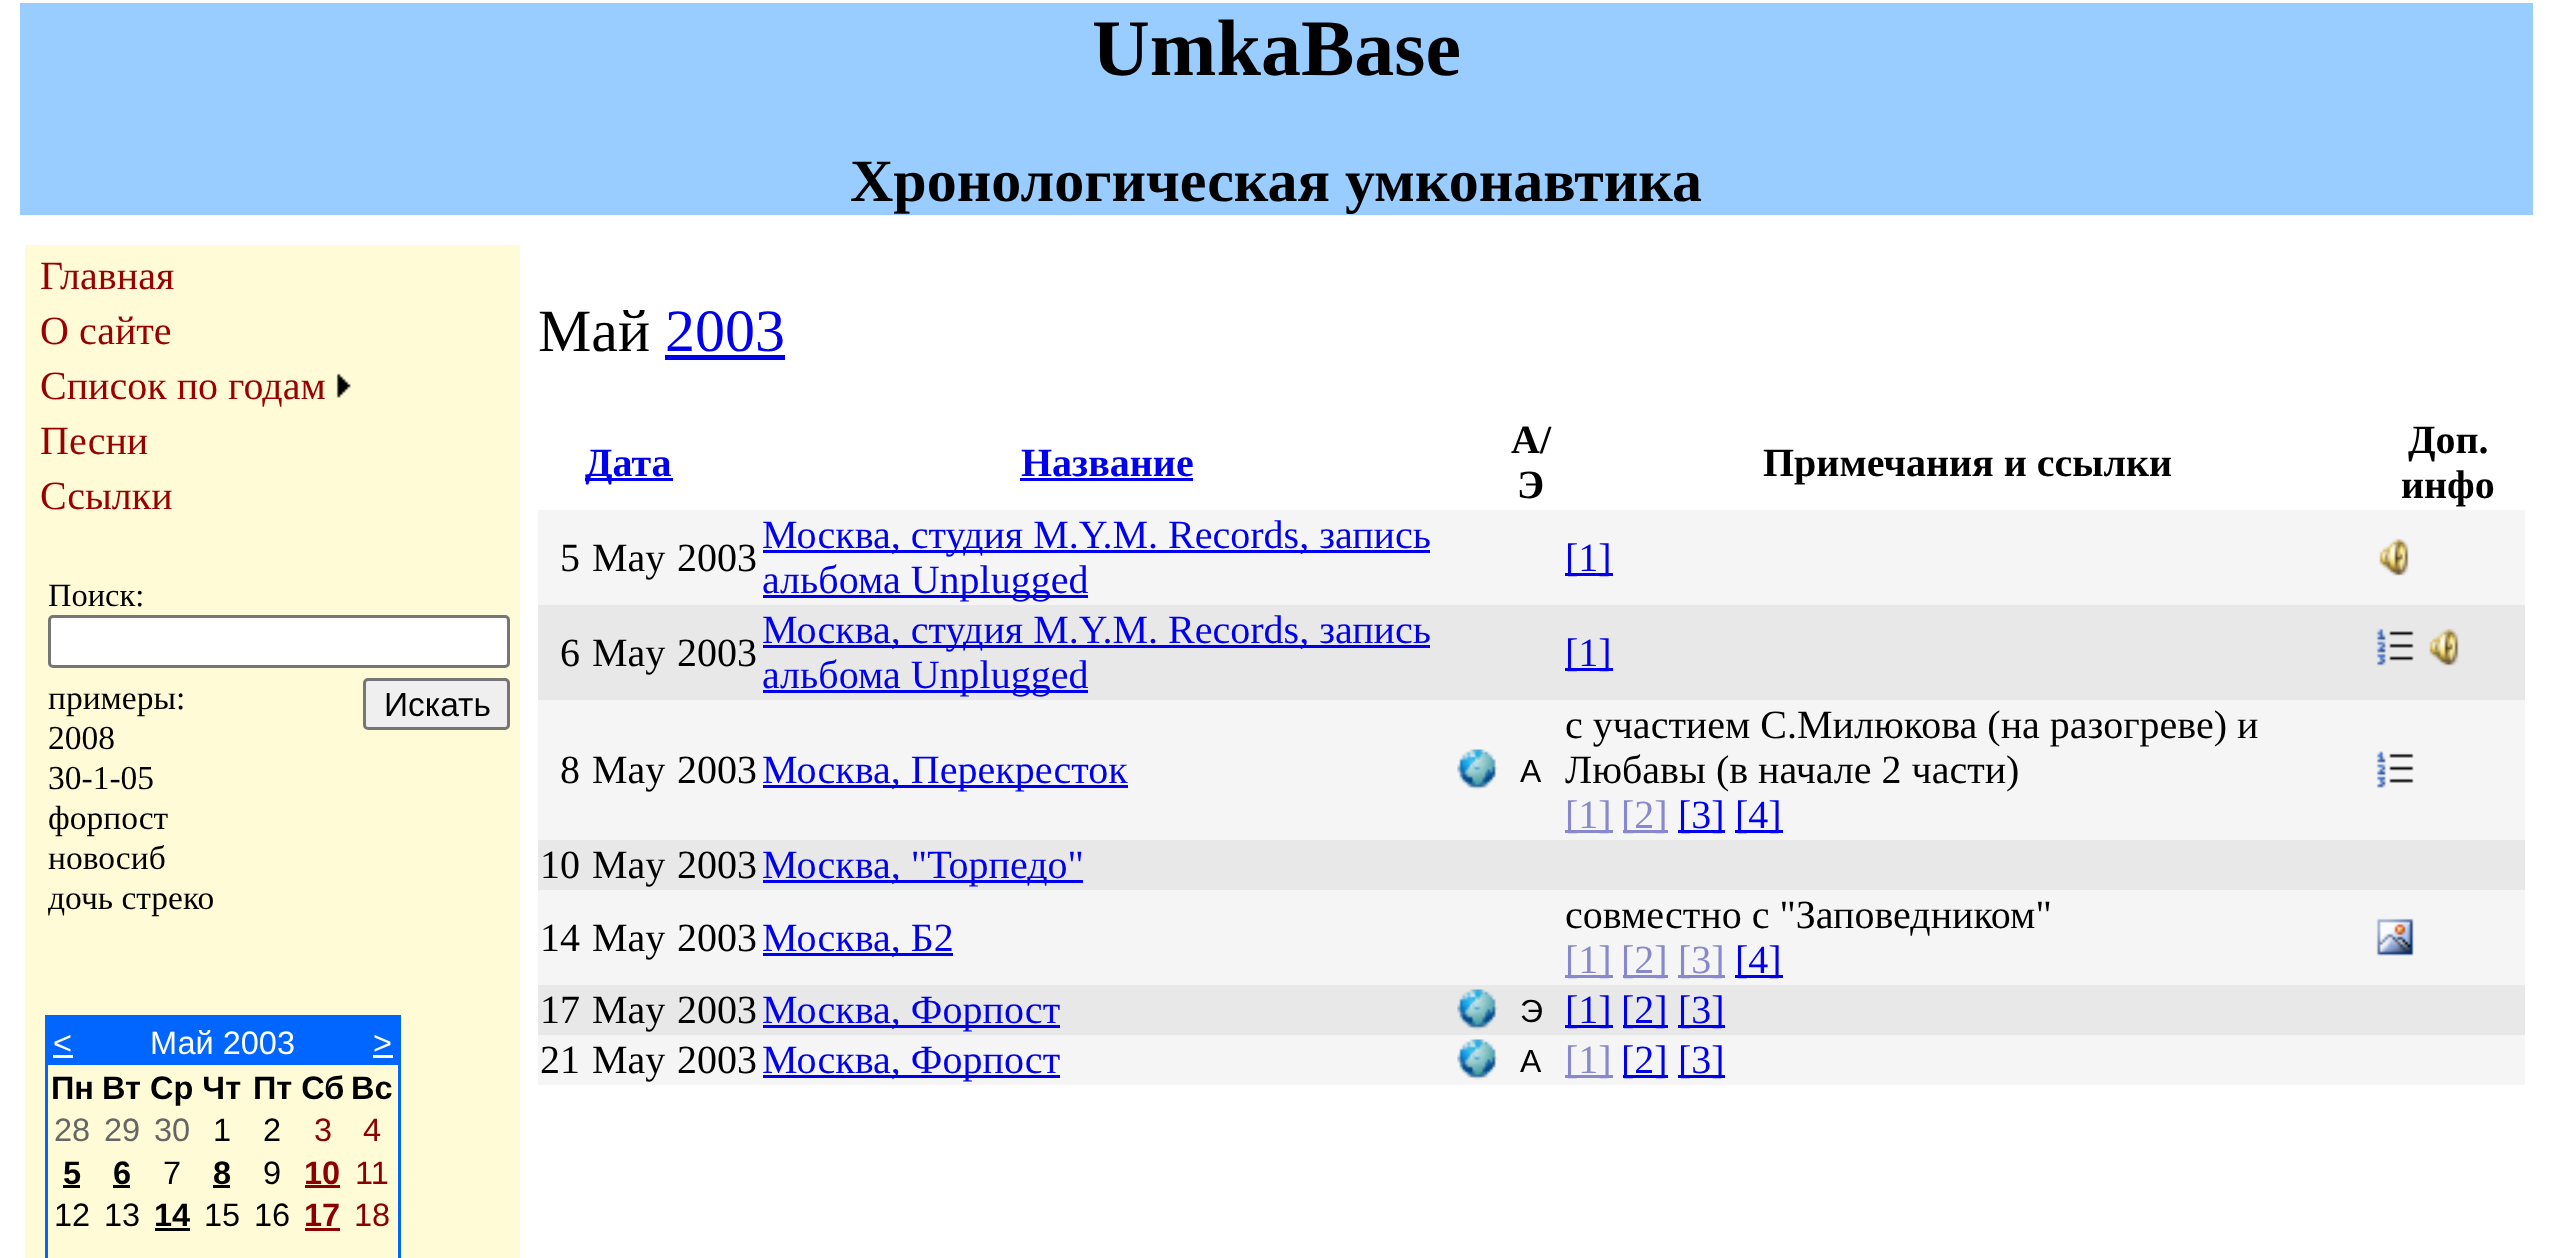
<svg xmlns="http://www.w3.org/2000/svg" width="2552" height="1258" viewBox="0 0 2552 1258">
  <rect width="100%" height="100%" fill="rgb(255,255,255)"/>
  <rect x="20" y="3" width="2513" height="212" fill="rgb(153,204,255)"/>
  <text x="1092" y="75" font-family="Liberation Serif" font-size="80" font-weight="bold" fill="rgb(0,0,0)">UmkaBase</text>
  <text x="850" y="201" font-family="Liberation Serif" font-size="60" font-weight="bold" fill="rgb(0,0,0)">Хронологическая умконавтика</text>
  <rect x="25" y="245" width="495" height="1013" fill="rgb(255,251,214)"/>
  <g font-family="Liberation Serif" font-size="40" fill="rgb(153,0,0)">
    <text>
      <tspan x="40" y="289">Главная</tspan>
      <tspan x="40" y="344">О сайте</tspan>
      <tspan x="40" y="399">Список по годам</tspan>
    </text>
  </g>
  <image x="336" y="373" width="15" height="25" href="pic1.png"/>
  <g font-family="Liberation Serif" font-size="40" fill="rgb(153,0,0)">
    <text>
      <tspan x="40" y="454">Песни</tspan>
      <tspan x="40" y="509">Ссылки</tspan>
    </text>
  </g>
  <text x="48" y="606" font-family="Liberation Serif" font-size="32.5" fill="rgb(0,0,0)">Поиск:</text>
  <rect x="49.5" y="616.5" width="459" height="50" rx="3.5" fill="rgb(255,255,255)" stroke="rgb(118,118,118)" stroke-width="3"/>
  <g font-family="Liberation Serif" font-size="33.5" fill="rgb(0,0,0)">
    <text>
      <tspan x="48" y="709">примеры:</tspan>
      <tspan x="48" y="749">2008</tspan>
      <tspan x="48" y="789">30-1-05</tspan>
      <tspan x="48" y="829">форпост</tspan>
      <tspan x="48" y="869">новосиб</tspan>
      <tspan x="48" y="909">дочь стреко</tspan>
    </text>
  </g>
  <rect x="364.5" y="679.5" width="144" height="49" rx="3.5" fill="rgb(239,239,239)" stroke="rgb(118,118,118)" stroke-width="3"/>
  <text x="384" y="716" font-family="Liberation Sans" font-size="33.5" fill="rgb(0,0,0)">Искать</text>
  <rect x="45" y="1015" width="355" height="3" fill="rgb(0,102,255)"/>
  <rect x="398" y="1015" width="3" height="243" fill="rgb(0,102,255)"/>
  <rect x="45" y="1015" width="3" height="243" fill="rgb(0,102,255)"/>
  <rect x="48" y="1018" width="350" height="47" fill="rgb(0,102,255)"/>
  <text x="53" y="1054" font-family="Liberation Sans" font-size="32.5" fill="rgb(255,255,255)">&lt;</text>
  <rect x="53" y="1055" width="20" height="3" fill="rgb(255,255,255)"/>
  <g font-family="Liberation Sans" font-size="32.5" fill="rgb(255,255,255)">
    <text x="150" y="1054">Май 2003</text>
    <text x="373" y="1054">&gt;</text>
  </g>
  <rect x="373" y="1055" width="20" height="3" fill="rgb(255,255,255)"/>
  <g font-family="Liberation Sans" font-size="32.5" font-weight="bold" fill="rgb(0,0,0)">
    <text x="51" y="1099">Пн</text>
    <text x="102" y="1099">Вт Ср Чт</text>
    <text x="253" y="1099">Пт Сб</text>
    <text x="351" y="1099">Вс</text>
  </g>
  <g font-family="Liberation Sans" font-size="32.5" fill="rgb(102,102,102)">
    <text x="54" y="1141">28</text>
    <text x="104" y="1141">29</text>
    <text x="154" y="1141">30</text>
  </g>
  <g font-family="Liberation Sans" font-size="32.5" fill="rgb(0,0,0)">
    <text x="213" y="1141">1</text>
    <text x="263" y="1141">2</text>
  </g>
  <g font-family="Liberation Sans" font-size="32.5" fill="rgb(139,0,0)">
    <text x="314" y="1141">3</text>
    <text x="363" y="1141">4</text>
  </g>
  <text x="63" y="1184" font-family="Liberation Sans" font-size="32.5" font-weight="bold" fill="rgb(0,0,0)">5</text>
  <rect x="63" y="1185" width="17" height="3" fill="rgb(0,0,0)"/>
  <text x="113" y="1184" font-family="Liberation Sans" font-size="32.5" font-weight="bold" fill="rgb(0,0,0)">6</text>
  <rect x="113" y="1185" width="17" height="3" fill="rgb(0,0,0)"/>
  <text x="163" y="1184" font-family="Liberation Sans" font-size="32.5" fill="rgb(0,0,0)">7</text>
  <text x="213" y="1184" font-family="Liberation Sans" font-size="32.5" font-weight="bold" fill="rgb(0,0,0)">8</text>
  <rect x="213" y="1185" width="17" height="3" fill="rgb(0,0,0)"/>
  <text x="263" y="1184" font-family="Liberation Sans" font-size="32.5" fill="rgb(0,0,0)">9</text>
  <text x="304" y="1184" font-family="Liberation Sans" font-size="32.5" font-weight="bold" fill="rgb(139,0,0)">10</text>
  <rect x="305" y="1185" width="35" height="3" fill="rgb(139,0,0)"/>
  <text x="355" y="1184" font-family="Liberation Sans" font-size="32.5" fill="rgb(139,0,0)">11</text>
  <g font-family="Liberation Sans" font-size="32.5" fill="rgb(0,0,0)">
    <text x="54" y="1226">12</text>
    <text x="104" y="1226">13</text>
  </g>
  <text x="154" y="1226" font-family="Liberation Sans" font-size="32.5" font-weight="bold" fill="rgb(0,0,0)">14</text>
  <rect x="155" y="1228" width="35" height="3" fill="rgb(0,0,0)"/>
  <g font-family="Liberation Sans" font-size="32.5" fill="rgb(0,0,0)">
    <text x="204" y="1226">15</text>
    <text x="254" y="1226">16</text>
  </g>
  <text x="304" y="1226" font-family="Liberation Sans" font-size="32.5" font-weight="bold" fill="rgb(139,0,0)">17</text>
  <rect x="305" y="1228" width="35" height="3" fill="rgb(139,0,0)"/>
  <text x="354" y="1226" font-family="Liberation Sans" font-size="32.5" fill="rgb(139,0,0)">18</text>
  <text x="538" y="351" font-family="Liberation Serif" font-size="60" fill="rgb(0,0,0)">Май</text>
  <text x="665" y="351" font-family="Liberation Serif" font-size="60" fill="rgb(0,0,238)">2003</text>
  <rect x="665" y="355" width="120" height="5" fill="rgb(0,0,238)"/>
  <rect x="585" y="478" width="88" height="3" fill="rgb(0,0,238)"/>
  <g font-family="Liberation Serif" font-size="40" font-weight="bold" fill="rgb(0,0,238)">
    <text x="585" y="476">Дата</text>
    <text x="1021" y="476">Название</text>
  </g>
  <rect x="1020" y="478" width="173" height="3" fill="rgb(0,0,238)"/>
  <g font-family="Liberation Serif" font-size="40" font-weight="bold" fill="rgb(0,0,0)">
    <text x="1511" y="453">А/</text>
    <text x="1517" y="498">Э</text>
    <text x="1763" y="476">Примечания и ссылки</text>
    <text x="2408" y="453">Доп.</text>
    <text x="2401" y="498">инфо</text>
  </g>
  <rect x="538" y="510" width="1987" height="95" fill="rgb(245,245,245)"/>
  <g font-family="Liberation Serif" font-size="40" fill="rgb(0,0,0)">
    <text x="560" y="571">5</text>
    <text x="592" y="571">May</text>
    <text x="677" y="571">2003</text>
  </g>
  <rect x="763" y="550" width="667" height="3" fill="rgb(0,0,238)"/>
  <text x="762" y="548" font-family="Liberation Serif" font-size="40" fill="rgb(0,0,238)">Москва, студия M.Y.M. Records, запись</text>
  <rect x="763" y="595" width="325" height="3" fill="rgb(0,0,238)"/>
  <text x="762" y="593" font-family="Liberation Serif" font-size="40" fill="rgb(0,0,238)">альбома Unplugged</text>
  <rect x="1565" y="573" width="48" height="3" fill="rgb(0,0,238)"/>
  <text x="1565" y="571" font-family="Liberation Serif" font-size="40" fill="rgb(0,0,238)">[1]</text>
  <image x="2379" y="538" width="30" height="38" href="pic2.png"/>
  <rect x="538" y="605" width="1987" height="95" fill="rgb(232,232,232)"/>
  <g font-family="Liberation Serif" font-size="40" fill="rgb(0,0,0)">
    <text x="560" y="666">6</text>
    <text x="592" y="666">May</text>
    <text x="677" y="666">2003</text>
  </g>
  <rect x="763" y="645" width="667" height="3" fill="rgb(0,0,238)"/>
  <text x="762" y="643" font-family="Liberation Serif" font-size="40" fill="rgb(0,0,238)">Москва, студия M.Y.M. Records, запись</text>
  <rect x="763" y="690" width="325" height="3" fill="rgb(0,0,238)"/>
  <text x="762" y="688" font-family="Liberation Serif" font-size="40" fill="rgb(0,0,238)">альбома Unplugged</text>
  <rect x="1565" y="668" width="48" height="3" fill="rgb(0,0,238)"/>
  <text x="1565" y="666" font-family="Liberation Serif" font-size="40" fill="rgb(0,0,238)">[1]</text>
  <image x="2376" y="628" width="38" height="38" href="pic3.png"/>
  <image x="2429" y="628" width="30" height="38" href="pic4.png"/>
  <rect x="538" y="700" width="1987" height="140" fill="rgb(245,245,245)"/>
  <g font-family="Liberation Serif" font-size="40" fill="rgb(0,0,0)">
    <text x="560" y="783">8</text>
    <text x="592" y="783">May</text>
    <text x="677" y="783">2003</text>
  </g>
  <rect x="763" y="785" width="365" height="3" fill="rgb(0,0,238)"/>
  <text x="762" y="783" font-family="Liberation Serif" font-size="40" fill="rgb(0,0,238)">Москва, Перекресток</text>
  <image x="1457" y="749" width="41" height="41" href="pic5.png"/>
  <text x="1520" y="782" font-family="Liberation Sans" font-size="32" fill="rgb(0,0,0)">А</text>
  <g font-family="Liberation Serif" font-size="40" fill="rgb(0,0,0)">
    <text>
      <tspan x="1565" y="738">с участием С.Милюкова (на разогреве) и</tspan>
      <tspan x="1565" y="783">Любавы (в начале 2 части)</tspan>
    </text>
  </g>
  <rect x="1565" y="830" width="48" height="3" fill="rgb(136,136,204)"/>
  <text x="1565" y="828" font-family="Liberation Serif" font-size="40" fill="rgb(136,136,204)">[1]</text>
  <rect x="1623" y="830" width="45" height="3" fill="rgb(136,136,204)"/>
  <text x="1621" y="828" font-family="Liberation Serif" font-size="40" fill="rgb(136,136,204)">[2]</text>
  <rect x="1678" y="830" width="47" height="3" fill="rgb(0,0,238)"/>
  <text x="1678" y="828" font-family="Liberation Serif" font-size="40" fill="rgb(0,0,238)">[3]</text>
  <rect x="1735" y="830" width="48" height="3" fill="rgb(0,0,238)"/>
  <text x="1735" y="828" font-family="Liberation Serif" font-size="40" fill="rgb(0,0,238)">[4]</text>
  <image x="2376" y="751" width="38" height="37" href="pic6.png"/>
  <rect x="538" y="840" width="1987" height="50" fill="rgb(232,232,232)"/>
  <g font-family="Liberation Serif" font-size="40" fill="rgb(0,0,0)">
    <text x="540" y="878">10</text>
    <text x="592" y="878">May</text>
    <text x="677" y="878">2003</text>
  </g>
  <rect x="763" y="880" width="320" height="3" fill="rgb(0,0,238)"/>
  <text x="762" y="878" font-family="Liberation Serif" font-size="40" fill="rgb(0,0,238)">Москва, "Торпедо"</text>
  <rect x="538" y="890" width="1987" height="95" fill="rgb(245,245,245)"/>
  <g font-family="Liberation Serif" font-size="40" fill="rgb(0,0,0)">
    <text x="540" y="951">14</text>
    <text x="592" y="951">May</text>
    <text x="677" y="951">2003</text>
  </g>
  <rect x="763" y="953" width="190" height="3" fill="rgb(0,0,238)"/>
  <text x="762" y="951" font-family="Liberation Serif" font-size="40" fill="rgb(0,0,238)">Москва, Б2</text>
  <text x="1565" y="928" font-family="Liberation Serif" font-size="40" fill="rgb(0,0,0)">совместно с "Заповедником"</text>
  <rect x="1565" y="975" width="48" height="3" fill="rgb(136,136,204)"/>
  <text x="1565" y="973" font-family="Liberation Serif" font-size="40" fill="rgb(136,136,204)">[1]</text>
  <rect x="1623" y="975" width="45" height="3" fill="rgb(136,136,204)"/>
  <text x="1621" y="973" font-family="Liberation Serif" font-size="40" fill="rgb(136,136,204)">[2]</text>
  <rect x="1678" y="975" width="47" height="3" fill="rgb(136,136,204)"/>
  <text x="1678" y="973" font-family="Liberation Serif" font-size="40" fill="rgb(136,136,204)">[3]</text>
  <rect x="1735" y="975" width="48" height="3" fill="rgb(0,0,238)"/>
  <text x="1735" y="973" font-family="Liberation Serif" font-size="40" fill="rgb(0,0,238)">[4]</text>
  <image x="2376" y="918" width="38" height="38" href="pic7.png"/>
  <rect x="538" y="985" width="1987" height="50" fill="rgb(232,232,232)"/>
  <g font-family="Liberation Serif" font-size="40" fill="rgb(0,0,0)">
    <text x="540" y="1023">17</text>
    <text x="592" y="1023">May</text>
    <text x="677" y="1023">2003</text>
  </g>
  <rect x="763" y="1025" width="297" height="3" fill="rgb(0,0,238)"/>
  <text x="762" y="1023" font-family="Liberation Serif" font-size="40" fill="rgb(0,0,238)">Москва, Форпост</text>
  <image x="1457" y="989" width="41" height="41" href="pic8.png"/>
  <text x="1520" y="1022" font-family="Liberation Sans" font-size="32" fill="rgb(0,0,0)">Э</text>
  <rect x="1565" y="1025" width="48" height="3" fill="rgb(0,0,238)"/>
  <text x="1565" y="1023" font-family="Liberation Serif" font-size="40" fill="rgb(0,0,238)">[1]</text>
  <rect x="1623" y="1025" width="45" height="3" fill="rgb(0,0,238)"/>
  <text x="1621" y="1023" font-family="Liberation Serif" font-size="40" fill="rgb(0,0,238)">[2]</text>
  <rect x="1678" y="1025" width="47" height="3" fill="rgb(0,0,238)"/>
  <text x="1678" y="1023" font-family="Liberation Serif" font-size="40" fill="rgb(0,0,238)">[3]</text>
  <rect x="538" y="1035" width="1987" height="50" fill="rgb(245,245,245)"/>
  <g font-family="Liberation Serif" font-size="40" fill="rgb(0,0,0)">
    <text x="540" y="1073">21</text>
    <text x="592" y="1073">May</text>
    <text x="677" y="1073">2003</text>
  </g>
  <rect x="763" y="1075" width="297" height="3" fill="rgb(0,0,238)"/>
  <text x="762" y="1073" font-family="Liberation Serif" font-size="40" fill="rgb(0,0,238)">Москва, Форпост</text>
  <image x="1457" y="1039" width="41" height="41" href="pic9.png"/>
  <text x="1520" y="1072" font-family="Liberation Sans" font-size="32" fill="rgb(0,0,0)">А</text>
  <rect x="1565" y="1075" width="48" height="3" fill="rgb(136,136,204)"/>
  <text x="1565" y="1073" font-family="Liberation Serif" font-size="40" fill="rgb(136,136,204)">[1]</text>
  <rect x="1623" y="1075" width="45" height="3" fill="rgb(0,0,238)"/>
  <text x="1621" y="1073" font-family="Liberation Serif" font-size="40" fill="rgb(0,0,238)">[2]</text>
  <rect x="1678" y="1075" width="47" height="3" fill="rgb(0,0,238)"/>
  <text x="1678" y="1073" font-family="Liberation Serif" font-size="40" fill="rgb(0,0,238)">[3]</text>
</svg>
